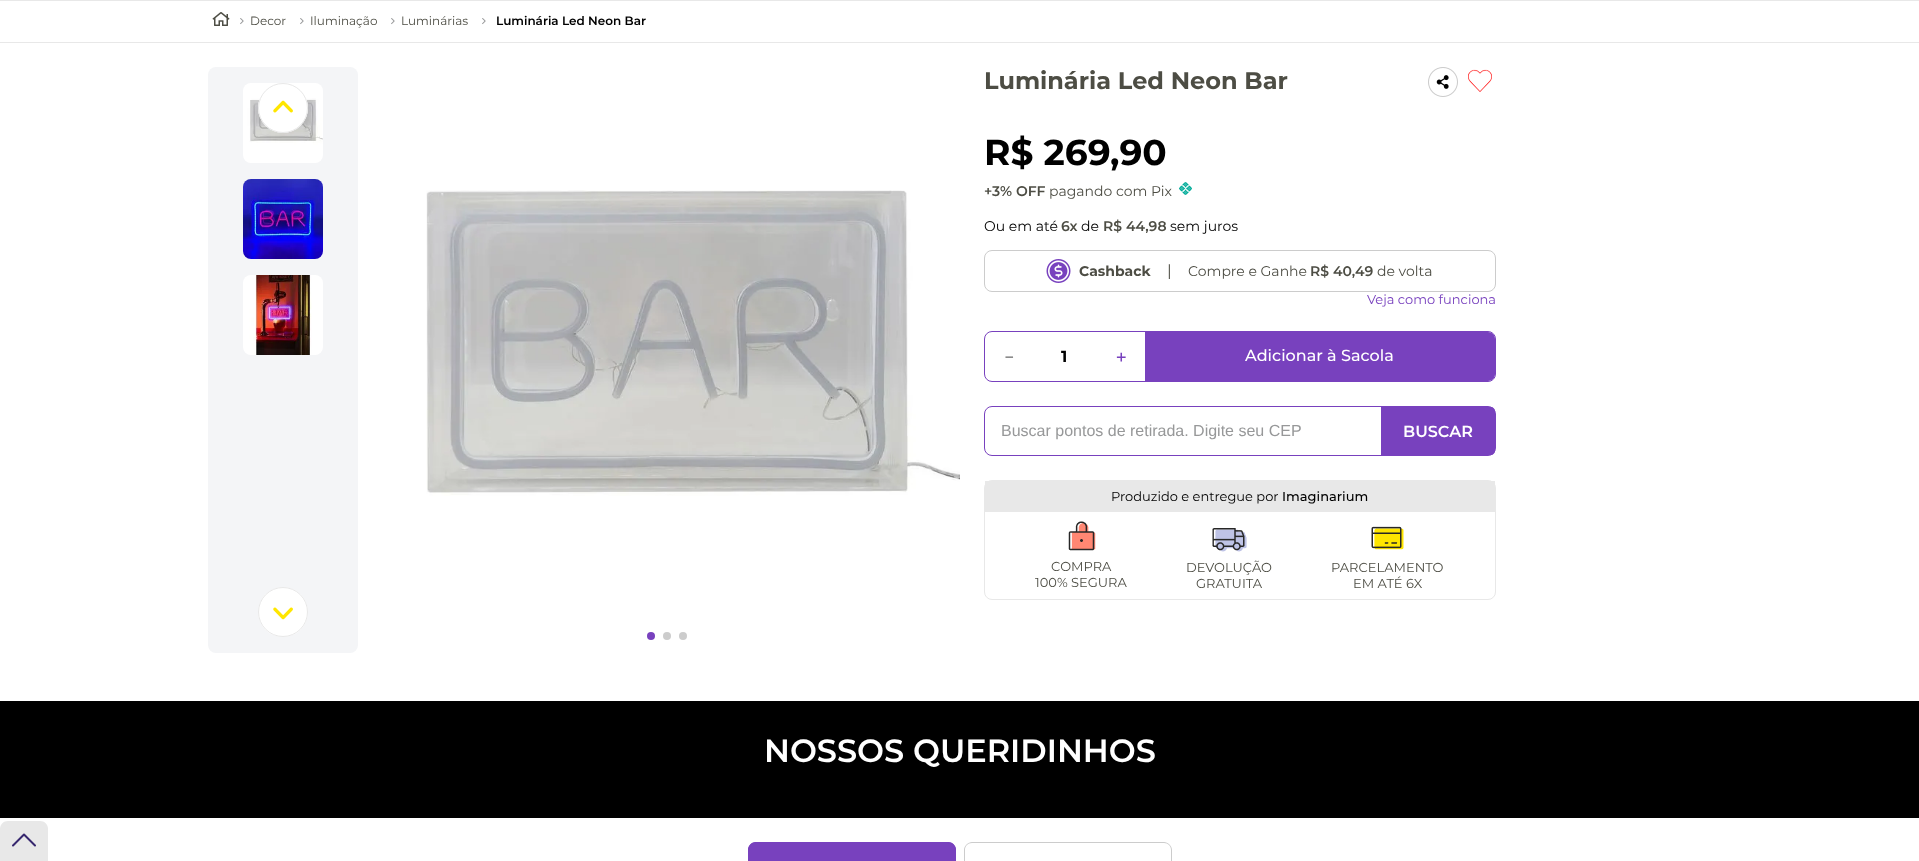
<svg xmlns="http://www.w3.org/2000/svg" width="1919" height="861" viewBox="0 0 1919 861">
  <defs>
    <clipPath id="clip1"><rect x="258" y="83" width="50" height="50" rx="25"/></clipPath>
    <linearGradient id="g1" gradientUnits="userSpaceOnUse" x1="283" y1="84" x2="283" y2="132"><stop offset="0" stop-color="rgb(255,255,255)"/><stop offset="1" stop-color="rgb(255,255,255)" stop-opacity="0"/></linearGradient>
    <clipPath id="clip2"><rect x="258" y="587" width="50" height="50" rx="25"/></clipPath>
    <linearGradient id="g2" gradientUnits="userSpaceOnUse" x1="283" y1="588" x2="283" y2="636"><stop offset="0" stop-color="rgb(255,255,255)" stop-opacity="0"/><stop offset="1" stop-color="rgb(255,255,255)"/></linearGradient>
  </defs>
  <rect width="100%" height="100%" fill="rgb(255,255,255)"/>
  <rect x="0" y="0" width="1919" height="1" fill="rgb(232,232,232)"/>
  <rect x="0" y="42" width="1919" height="1" fill="rgb(232,232,232)"/>
  <image x="212" y="12" width="18" height="14" href="pic1.png"/>
  <image x="240" y="18" width="4" height="7" href="pic2.png"/>
  <text x="250" y="25" font-family="Montserrat" font-size="12" fill="rgb(77,77,68)">Decor</text>
  <image x="300" y="18" width="4" height="7" href="pic2.png"/>
  <text x="310" y="25" font-family="Montserrat" font-size="12" fill="rgb(77,77,68)">Iluminação</text>
  <image x="391" y="18" width="4" height="7" href="pic2.png"/>
  <text x="401" y="25" font-family="Montserrat" font-size="12" fill="rgb(77,77,68)">Luminárias</text>
  <image x="482" y="18" width="4" height="7" href="pic2.png"/>
  <text x="496" y="25" font-family="Montserrat" font-size="12" font-weight="600" fill="rgb(0,0,0)">Luminária Led Neon Bar</text>
  <rect x="208" y="67" width="150" height="586" rx="8" fill="rgb(244,245,247)"/>
  <image x="243" y="83" width="80" height="80" href="pic3.png"/>
  <image x="243" y="179" width="80" height="80" href="pic4.png"/>
  <image x="243" y="275" width="80" height="80" href="pic5.png"/>
  <circle cx="283" cy="108" r="25" fill="rgb(255,255,255)"/>
  <g clip-path="url(#clip1)">
    <rect x="258" y="84" width="50" height="47" fill="url(#g1)"/>
  </g>
  <circle cx="283" cy="108" r="24.5" fill="none" stroke="rgb(232,232,232)"/>
  <image x="273" y="100" width="20" height="13" href="pic6.png"/>
  <circle cx="283" cy="612" r="25" fill="rgb(255,255,255)"/>
  <g clip-path="url(#clip2)">
    <rect x="258" y="589" width="50" height="47" fill="url(#g2)"/>
  </g>
  <circle cx="283" cy="612" r="24.5" fill="none" stroke="rgb(232,232,232)"/>
  <image x="273" y="607" width="20" height="13" href="pic7.png"/>
  <image x="426" y="190" width="534" height="306" href="pic8.png"/>
  <circle cx="651" cy="636" r="4" fill="rgb(120,65,190)"/>
  <circle cx="667" cy="636" r="4" fill="rgb(204,204,204)"/>
  <circle cx="683" cy="636" r="4" fill="rgb(204,204,204)"/>
  <text x="984" y="89" font-family="Montserrat" font-size="24" font-weight="bold" fill="rgb(77,77,68)">Luminária Led Neon Bar</text>
  <image x="1428" y="67" width="30" height="30" href="pic9.png"/>
  <image x="1468" y="69" width="24" height="23" href="pic10.png"/>
  <g font-family="Montserrat" font-size="36" font-weight="bold" fill="rgb(0,0,0)">
    <text x="984" y="165">R$ 269</text>
    <text x="1110" y="165">,90</text>
  </g>
  <text x="984" y="196" font-family="Montserrat" font-size="14" font-weight="600" fill="rgb(77,77,68)">+3% OFF</text>
  <text x="1049" y="196" font-family="Montserrat" font-size="14" fill="rgb(77,77,68)">pagando com Pix</text>
  <image x="1179" y="182" width="13" height="13" href="pic11.png"/>
  <text x="984" y="231" font-family="Montserrat" font-size="14" fill="rgb(0,0,0)">Ou em até</text>
  <text x="1061" y="231" font-family="Montserrat" font-size="14" font-weight="600" fill="rgb(77,77,68)">6x</text>
  <text x="1081" y="231" font-family="Montserrat" font-size="14" fill="rgb(0,0,0)">de</text>
  <text x="1103" y="231" font-family="Montserrat" font-size="14" font-weight="600" fill="rgb(77,77,68)">R$ 44,98</text>
  <text x="1170" y="231" font-family="Montserrat" font-size="14" fill="rgb(0,0,0)">sem juros</text>
  <rect x="984.5" y="250.5" width="511" height="41" rx="7.5" fill="none" stroke="rgb(204,204,204)"/>
  <image x="1046" y="259" width="25" height="24" href="pic12.png"/>
  <text x="1079" y="276" font-family="Montserrat" font-size="14" font-weight="bold" fill="rgb(77,77,68)">Cashback</text>
  <text x="1167" y="276" font-family="Montserrat" font-size="16" fill="rgb(77,77,68)">|</text>
  <text x="1188" y="276" font-family="Montserrat" font-size="14" fill="rgb(77,77,68)">Compre e Ganhe</text>
  <text x="1310" y="276" font-family="Montserrat" font-size="14" font-weight="600" fill="rgb(77,77,68)">R$ 40,49</text>
  <text x="1377" y="276" font-family="Montserrat" font-size="14" fill="rgb(77,77,68)">de volta</text>
  <text x="1367" y="304" font-family="Montserrat" font-size="13" fill="rgb(120,65,190)">Veja como funciona</text>
  <rect x="984.5" y="331.5" width="511" height="50" rx="7.5" fill="none" stroke="rgb(120,65,190)"/>
  <text x="1001" y="362" font-family="WenQuanYi Zen Hei" font-size="16" font-weight="bold" fill="rgb(128,128,128)">－</text>
  <text x="1061" y="362" font-family="Montserrat" font-size="16" font-weight="bold" fill="rgb(0,0,0)">1</text>
  <text x="1113" y="362" font-family="WenQuanYi Zen Hei" font-size="16" font-weight="bold" fill="rgb(120,65,190)">＋</text>
  <path d="M1145 332H1488C1492 332 1495 335 1495 339V374C1495 378 1492 381 1488 381H1145Z" fill="rgb(120,65,190)"/>
  <text x="1245" y="361" font-family="Montserrat" font-size="16" font-weight="500" fill="rgb(255,255,255)">Adicionar à Sacola</text>
  <rect x="984.5" y="406.5" width="511" height="49" rx="7.5" fill="none" stroke="rgb(120,65,190)"/>
  <text x="1001" y="436" font-family="Liberation Sans" font-size="16" fill="rgb(151,152,153)">Buscar pontos de retirada. Digite seu CEP</text>
  <path d="M1381 407H1491C1493 407 1495 409 1495 411V451C1495 453 1493 455 1491 455H1381Z" fill="rgb(120,65,190)"/>
  <text x="1403" y="437" font-family="Montserrat" font-size="16" font-weight="600" fill="rgb(255,255,255)">BUSCAR</text>
  <rect x="984.5" y="480.5" width="511" height="119" rx="7.5" fill="none" stroke="rgb(232,232,232)"/>
  <rect x="985" y="481" width="510" height="31" fill="rgb(232,232,232)"/>
  <text x="1111" y="501" font-family="Montserrat" font-size="13" fill="rgb(0,0,0)">Produzido e entregue por</text>
  <text x="1282" y="501" font-family="Montserrat" font-size="13" font-weight="500" fill="rgb(0,0,0)">Imaginarium</text>
  <image x="1068" y="521" width="28" height="30" href="pic13.png"/>
  <g font-family="Montserrat" font-size="13" fill="rgb(77,77,68)">
    <text x="1051" y="571">COMPRA</text>
    <text x="1035" y="587">100% SEGURA</text>
  </g>
  <image x="1212" y="528" width="35" height="24" href="pic14.png"/>
  <g font-family="Montserrat" font-size="13" fill="rgb(77,77,68)">
    <text x="1186" y="572">DEVOLUÇÃO</text>
    <text x="1196" y="588">GRATUITA</text>
  </g>
  <image x="1371" y="526" width="33" height="24" href="pic15.png"/>
  <g font-family="Montserrat" font-size="13" fill="rgb(77,77,68)">
    <text x="1331" y="572">PARCELAMENTO</text>
    <text x="1353" y="588">EM ATÉ 6X</text>
  </g>
  <rect x="0" y="701" width="1919" height="117" fill="rgb(0,0,0)"/>
  <text x="764" y="762" font-family="Montserrat" font-size="32" font-weight="600" fill="rgb(255,255,255)">NOSSOS QUERIDINHOS</text>
  <path d="M756 842H948C952.5 842 956 845.5 956 850V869H748V850C748 845.5 751.5 842 756 842Z" fill="rgb(120,65,190)"/>
  <path d="M756 842H948C952 842 956 846 956 850V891H748V850C748 846 752 842 756 842ZM756 843H948C952 843 955 846 955 850V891H749V850C749 846 752 843 756 843Z" fill="rgb(120,65,190)" fill-rule="evenodd"/>
  <path d="M972 842H1164C1168 842 1172 846 1172 850V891H964V850C964 846 968 842 972 842ZM972 843H1164C1168 843 1171 846 1171 850V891H965V850C965 846 968 843 972 843Z" fill="rgb(204,204,204)" fill-rule="evenodd"/>
  <path d="M8 821H40C44.5 821 48 824.5 48 829V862H0V829C0 824.5 3.5 821 8 821Z" fill="rgb(232,232,232)"/>
  <path d="M35 845.5L24 834.5L13 845.5" fill="none" stroke="rgb(54,39,110)" stroke-width="2" stroke-linecap="round" stroke-linejoin="round"/>
</svg>
